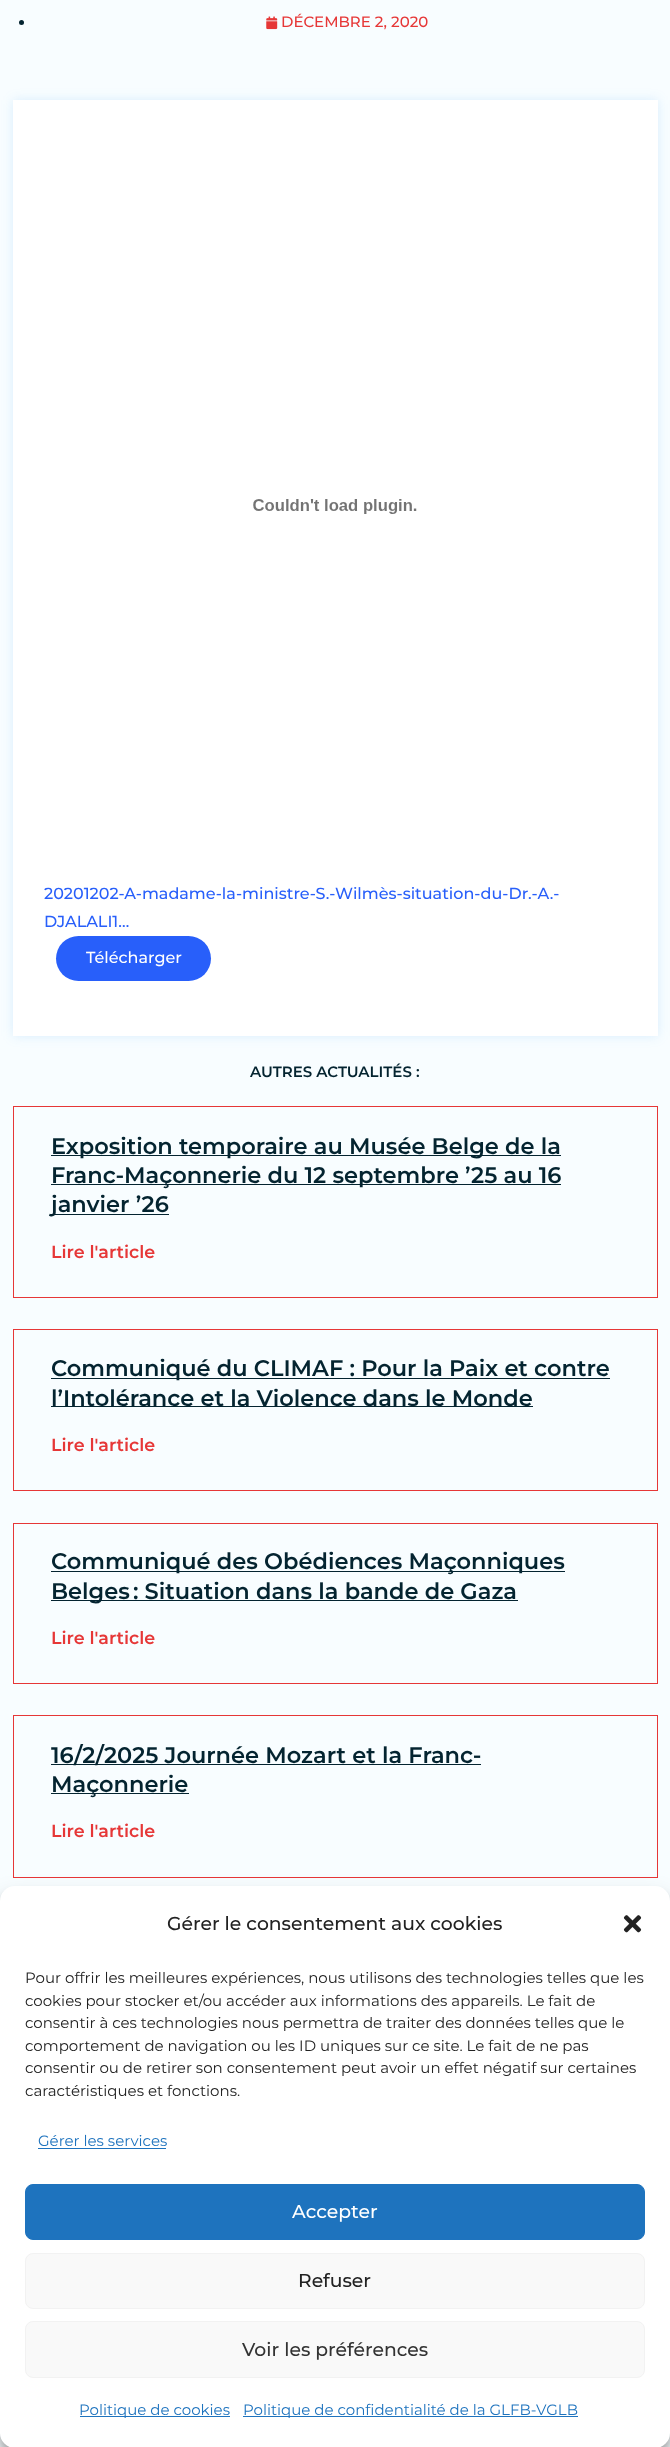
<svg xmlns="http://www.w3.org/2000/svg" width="670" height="2447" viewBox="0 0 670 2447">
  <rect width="100%" height="100%" fill="rgb(248,253,255)"/>
  <circle cx="21.5" cy="22.5" r="2.5" fill="rgb(4,36,48)"/>
  <image x="266" y="16" width="12" height="14" href="pic1.png"/>
  <text x="281" y="27" font-family="Montserrat" font-size="15" font-weight="500" fill="rgb(230,55,55)">DÉCEMBRE 2, 2020</text>
  <rect x="13" y="100" width="645" height="936" fill="rgba(40,149,242,0.15)" filter="blur(6px)"/>
  <rect x="13" y="100" width="645" height="936" fill="rgb(255,255,255)"/>
  <image x="253" y="499" width="164" height="15" href="pic2.png"/>
  <g font-family="Montserrat" font-size="16" font-weight="500" fill="rgb(40,95,250)">
    <text>
      <tspan x="44" y="899">20201202-A-madame-la-ministre-S.-Wilmès-situation-du-Dr.-A.-</tspan>
      <tspan x="44" y="927">DJALALI1…</tspan>
    </text>
  </g>
  <rect x="56" y="936" width="155" height="45" rx="22.5" fill="rgb(40,95,250)"/>
  <text x="86" y="963" font-family="Montserrat" font-size="16" font-weight="500" fill="rgb(255,255,255)">Télécharger</text>
  <text x="250" y="1077" font-family="Montserrat" font-size="15" font-weight="600" fill="rgb(4,36,48)">AUTRES ACTUALITÉS :</text>
  <rect x="13.5" y="1106.5" width="644" height="191" fill="none" stroke="rgb(230,55,55)"/>
  <rect x="51" y="1155" width="510" height="1" fill="rgb(4,36,48)"/>
  <text x="51" y="1154" font-family="Montserrat" font-size="22.5" font-weight="600" fill="rgb(4,36,48)">Exposition temporaire au Musée Belge de la</text>
  <rect x="51" y="1184" width="510" height="1" fill="rgb(4,36,48)"/>
  <text x="51" y="1183" font-family="Montserrat" font-size="22.5" font-weight="600" fill="rgb(4,36,48)">Franc-Maçonnerie du 12 septembre ’25 au 16</text>
  <rect x="51" y="1214" width="118" height="1" fill="rgb(4,36,48)"/>
  <text x="51" y="1212" font-family="Montserrat" font-size="22.5" font-weight="600" fill="rgb(4,36,48)">janvier ’26</text>
  <text x="51" y="1258" font-family="Montserrat" font-size="17.5" font-weight="600" fill="rgb(230,55,55)">Lire l'article</text>
  <rect x="13.5" y="1329.5" width="644" height="161" fill="none" stroke="rgb(230,55,55)"/>
  <rect x="51" y="1378" width="559" height="1" fill="rgb(4,36,48)"/>
  <text x="51" y="1376" font-family="Montserrat" font-size="22.5" font-weight="600" fill="rgb(4,36,48)">Communiqué du CLIMAF : Pour la Paix et contre</text>
  <rect x="51" y="1406" width="482" height="1" fill="rgb(4,36,48)"/>
  <text x="51" y="1406" font-family="Montserrat" font-size="22.5" font-weight="600" fill="rgb(4,36,48)">l’Intolérance et la Violence dans le Monde</text>
  <text x="51" y="1451" font-family="Montserrat" font-size="17.5" font-weight="600" fill="rgb(230,55,55)">Lire l'article</text>
  <rect x="13.5" y="1523.5" width="644" height="160" fill="none" stroke="rgb(230,55,55)"/>
  <rect x="51" y="1571" width="514" height="1" fill="rgb(4,36,48)"/>
  <text x="51" y="1569" font-family="Montserrat" font-size="22.5" font-weight="600" fill="rgb(4,36,48)">Communiqué des Obédiences Maçonniques</text>
  <rect x="51" y="1600" width="467" height="1" fill="rgb(4,36,48)"/>
  <text x="51" y="1599" font-family="Montserrat" font-size="22.5" font-weight="600" fill="rgb(4,36,48)">Belges : Situation dans la bande de Gaza</text>
  <text x="51" y="1644" font-family="Montserrat" font-size="17.5" font-weight="600" fill="rgb(230,55,55)">Lire l'article</text>
  <rect x="13.5" y="1715.5" width="644" height="162" fill="none" stroke="rgb(230,55,55)"/>
  <rect x="51" y="1764" width="430" height="1" fill="rgb(4,36,48)"/>
  <text x="51" y="1763" font-family="Montserrat" font-size="22.5" font-weight="600" fill="rgb(4,36,48)">16/2/2025 Journée Mozart et la Franc-</text>
  <rect x="51" y="1793" width="138" height="1" fill="rgb(4,36,48)"/>
  <text x="51" y="1792" font-family="Montserrat" font-size="22.5" font-weight="600" fill="rgb(4,36,48)">Maçonnerie</text>
  <text x="51" y="1837" font-family="Montserrat" font-size="17.5" font-weight="600" fill="rgb(230,55,55)">Lire l'article</text>
  <rect x="0" y="1894" width="670" height="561" rx="15" fill="rgba(0,0,0,0.23)" filter="blur(4px)"/>
  <rect x="0" y="1899" width="670" height="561" rx="15" fill="rgba(0,0,0,0.19)" filter="blur(12.5px)"/>
  <rect x="0" y="1886" width="670" height="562" rx="15" fill="rgb(255,255,255)"/>
  <text x="167" y="1930" font-family="Montserrat" font-size="18.75" font-weight="500" fill="rgb(34,34,34)">Gérer le consentement aux cookies</text>
  <image x="623" y="1915" width="19" height="18" href="pic3.png"/>
  <g font-family="Montserrat" font-size="15" fill="rgb(34,34,34)">
    <text>
      <tspan x="25" y="1983">Pour offrir les meilleures expériences, nous utilisons des technologies telles que les</tspan>
      <tspan x="25" y="2006">cookies pour stocker et/ou accéder aux informations des appareils. Le fait de</tspan>
      <tspan x="25" y="2028">consentir à ces technologies nous permettra de traiter des données telles que le</tspan>
      <tspan x="25" y="2051">comportement de navigation ou les ID uniques sur ce site. Le fait de ne pas</tspan>
      <tspan x="25" y="2073">consentir ou de retirer son consentement peut avoir un effet négatif sur certaines</tspan>
      <tspan x="25" y="2096">caractéristiques et fonctions.</tspan>
    </text>
  </g>
  <text x="38" y="2146" font-family="Montserrat" font-size="15" fill="rgb(30,115,190)">Gérer les services</text>
  <rect x="38" y="2148" width="128" height="1" fill="rgb(30,115,190)"/>
  <rect x="25.5" y="2184.5" width="619" height="55" rx="7.5" fill="rgb(30,115,190)" stroke="rgb(30,115,190)"/>
  <text x="292" y="2218" font-family="Montserrat" font-size="18.75" font-weight="500" fill="rgb(255,255,255)">Accepter</text>
  <rect x="25.5" y="2253.5" width="619" height="55" rx="7.5" fill="rgb(249,249,249)" stroke="rgb(242,242,242)"/>
  <text x="298" y="2287" font-family="Montserrat" font-size="18.75" font-weight="500" fill="rgb(34,34,34)">Refuser</text>
  <rect x="25.5" y="2321.5" width="619" height="56" rx="7.5" fill="rgb(249,249,249)" stroke="rgb(242,242,242)"/>
  <text x="242" y="2356" font-family="Montserrat" font-size="18.75" font-weight="500" fill="rgb(51,51,51)">Voir les préférences</text>
  <rect x="80" y="2416" width="150" height="1" fill="rgb(30,115,190)"/>
  <text x="79" y="2415" font-family="Montserrat" font-size="15" fill="rgb(30,115,190)">Politique de cookies</text>
  <rect x="243" y="2416" width="335" height="1" fill="rgb(30,115,190)"/>
  <text x="243" y="2415" font-family="Montserrat" font-size="15" fill="rgb(30,115,190)">Politique de confidentialité de la GLFB-VGLB</text>
</svg>
